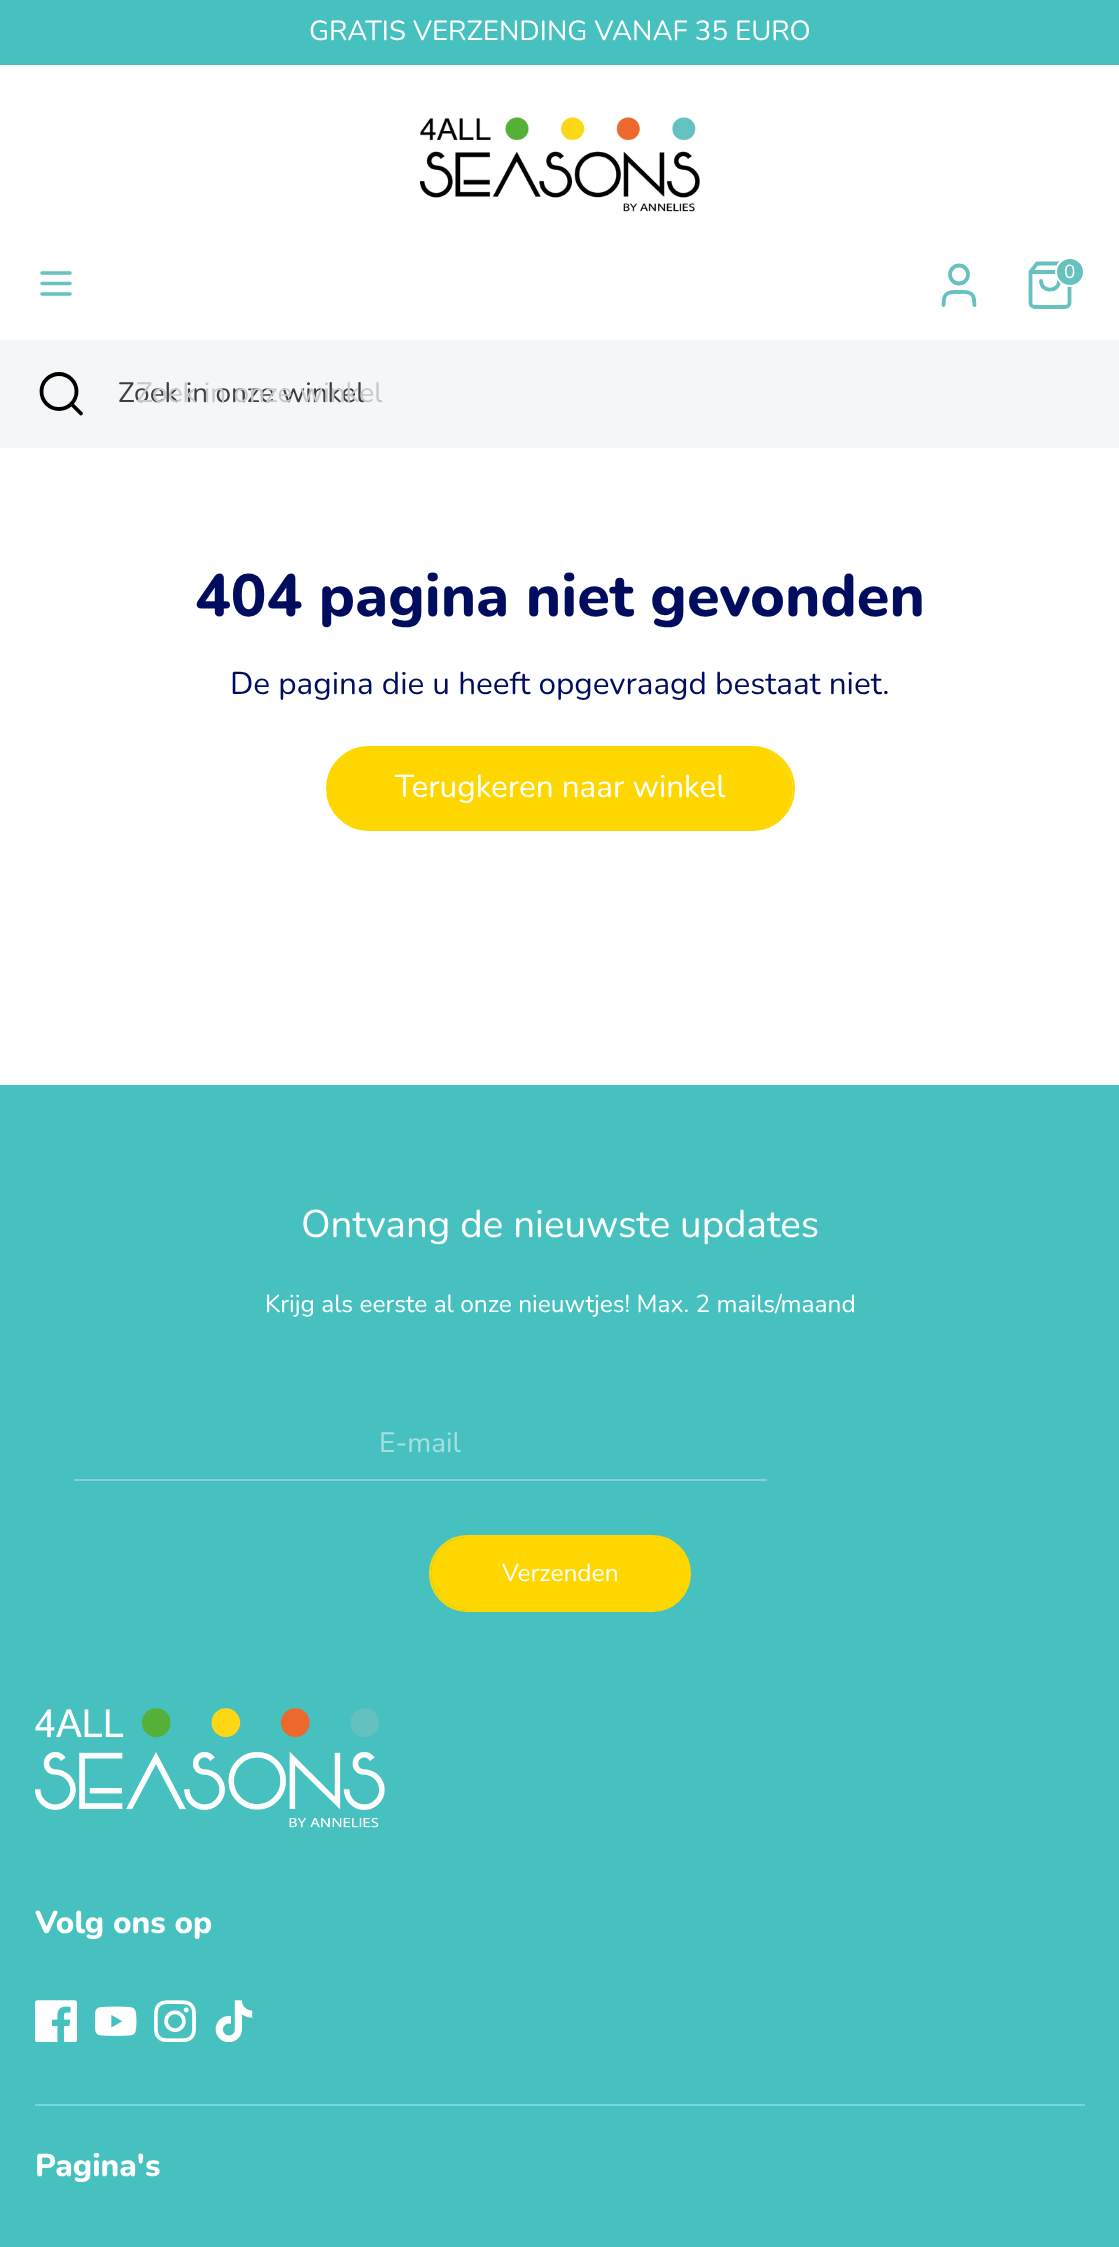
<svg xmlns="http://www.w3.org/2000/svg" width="1119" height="2247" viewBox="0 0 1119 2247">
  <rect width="100%" height="100%" fill="rgb(255,255,255)"/>
  <rect x="0" y="0" width="1119" height="65" fill="rgb(71,193,191)"/>
  <text x="309" y="40" font-family="Nunito" font-size="27.6" font-weight="200" fill="rgb(255,255,255)">GRATIS VERZENDING VANAF 35 EURO</text>
  <image x="420" y="117" width="280" height="95" href="pic1.png"/>
  <path d="M42 283.5H70M42 273H70M42 294H70" fill="none" stroke="rgb(102,193,191)" stroke-width="3.5" stroke-linecap="round" stroke-linejoin="round"/>
  <path d="M974.5 305L974 299C972.5 291 965 292 959 292C953 292 945.5 291 944 299L943.5 305" fill="none" stroke="rgb(102,193,191)" stroke-width="3.8" stroke-linecap="round" stroke-linejoin="round"/>
  <circle cx="959" cy="274.5" r="9" fill="none" stroke="rgb(102,193,191)" stroke-width="3.8"/>
  <path d="M1037 263.5L1030.5 272V303C1030.5 305 1032.5 307 1034.5 307H1065.5C1067.5 307 1069.5 305 1069.5 303V272L1063 263.5ZM1030.5 272H1069.5M1059 281C1059 292.5 1041 292.5 1041 281" fill="none" stroke="rgb(102,193,191)" stroke-width="3.8" stroke-linecap="round" stroke-linejoin="round"/>
  <circle cx="1070" cy="272" r="14" fill="rgb(102,193,191)" stroke="rgb(255,255,255)" stroke-width="2"/>
  <text x="1064" y="278" font-family="Nunito" font-size="19" font-weight="200" fill="rgb(255,255,255)">0</text>
  <rect x="0" y="340" width="1119" height="108" fill="rgb(244,246,248)"/>
  <circle cx="59" cy="391.5" r="17.5" fill="none" stroke="rgb(0,0,0)" stroke-width="3.8"/>
  <path d="M81 413.5L71.5 404" fill="none" stroke="rgb(0,0,0)" stroke-width="3.8" stroke-linecap="round" stroke-linejoin="round"/>
  <text x="118" y="402" font-family="Nunito" font-size="28" font-weight="200" fill="rgb(61,62,62)">Zoek in onze winkel</text>
  <text x="136" y="402" font-family="Nunito" font-size="28" font-weight="200" fill="rgb(198,200,202)">Zoek in onze winkel</text>
  <text x="195" y="616" font-family="Nunito" font-size="59.5" font-weight="800" fill="rgb(0,13,95)">404 pagina niet gevonden</text>
  <text x="230" y="694" font-family="Nunito" font-size="31.5" font-weight="200" fill="rgb(0,13,95)">De pagina die u heeft opgevraagd bestaat niet.</text>
  <rect x="327" y="747" width="467" height="83" rx="41.5" fill="none" stroke="rgb(255,215,0)" stroke-width="2"/>
  <rect x="327" y="747" width="466" height="83" rx="41.5" fill="rgb(255,215,0)"/>
  <text x="395" y="797" font-family="Nunito" font-size="31.5" font-weight="200" fill="rgb(255,255,255)">Terugkeren naar winkel</text>
  <rect x="0" y="1085" width="1119" height="1162" fill="rgb(71,193,191)"/>
  <text x="301" y="1237" font-family="Nunito" font-size="38.5" font-weight="200" fill="rgb(255,255,255)">Ontvang de nieuwste updates</text>
  <text x="265" y="1312" font-family="Nunito" font-size="24.5" font-weight="200" fill="rgb(255,255,255)">Krijg als eerste al onze nieuwtjes! Max. 2 mails/maand</text>
  <rect x="74" y="1479" width="693" height="2" fill="rgb(129,212,211)"/>
  <text x="379" y="1452" font-family="Nunito" font-size="28" font-weight="200" fill="rgb(163,224,223)">E-mail</text>
  <rect x="430" y="1536" width="260" height="75" rx="37.5" fill="none" stroke="rgb(255,215,0)" stroke-width="2"/>
  <rect x="431" y="1537" width="259" height="73" rx="36.5" fill="rgb(255,215,0)"/>
  <text x="502" y="1581" font-family="Nunito" font-size="24.5" font-weight="200" fill="rgb(255,255,255)">Verzenden</text>
  <rect x="35" y="2104" width="1050" height="2" fill="rgb(126,212,210)"/>
  <image x="35" y="1708" width="350" height="120" href="pic2.png"/>
  <text x="35" y="1933" font-family="Nunito" font-size="31.5" font-weight="800" fill="rgb(255,255,255)">Volg ons op</text>
  <image x="35" y="2000" width="42" height="42" href="pic3.png"/>
  <image x="95" y="2006" width="42" height="30" href="pic4.png"/>
  <image x="154" y="2000" width="42" height="42" href="pic5.png"/>
  <image x="215" y="2000" width="38" height="42" href="pic6.png"/>
  <text x="35" y="2176" font-family="Nunito" font-size="31.5" font-weight="800" fill="rgb(255,255,255)">Pagina's</text>
</svg>
